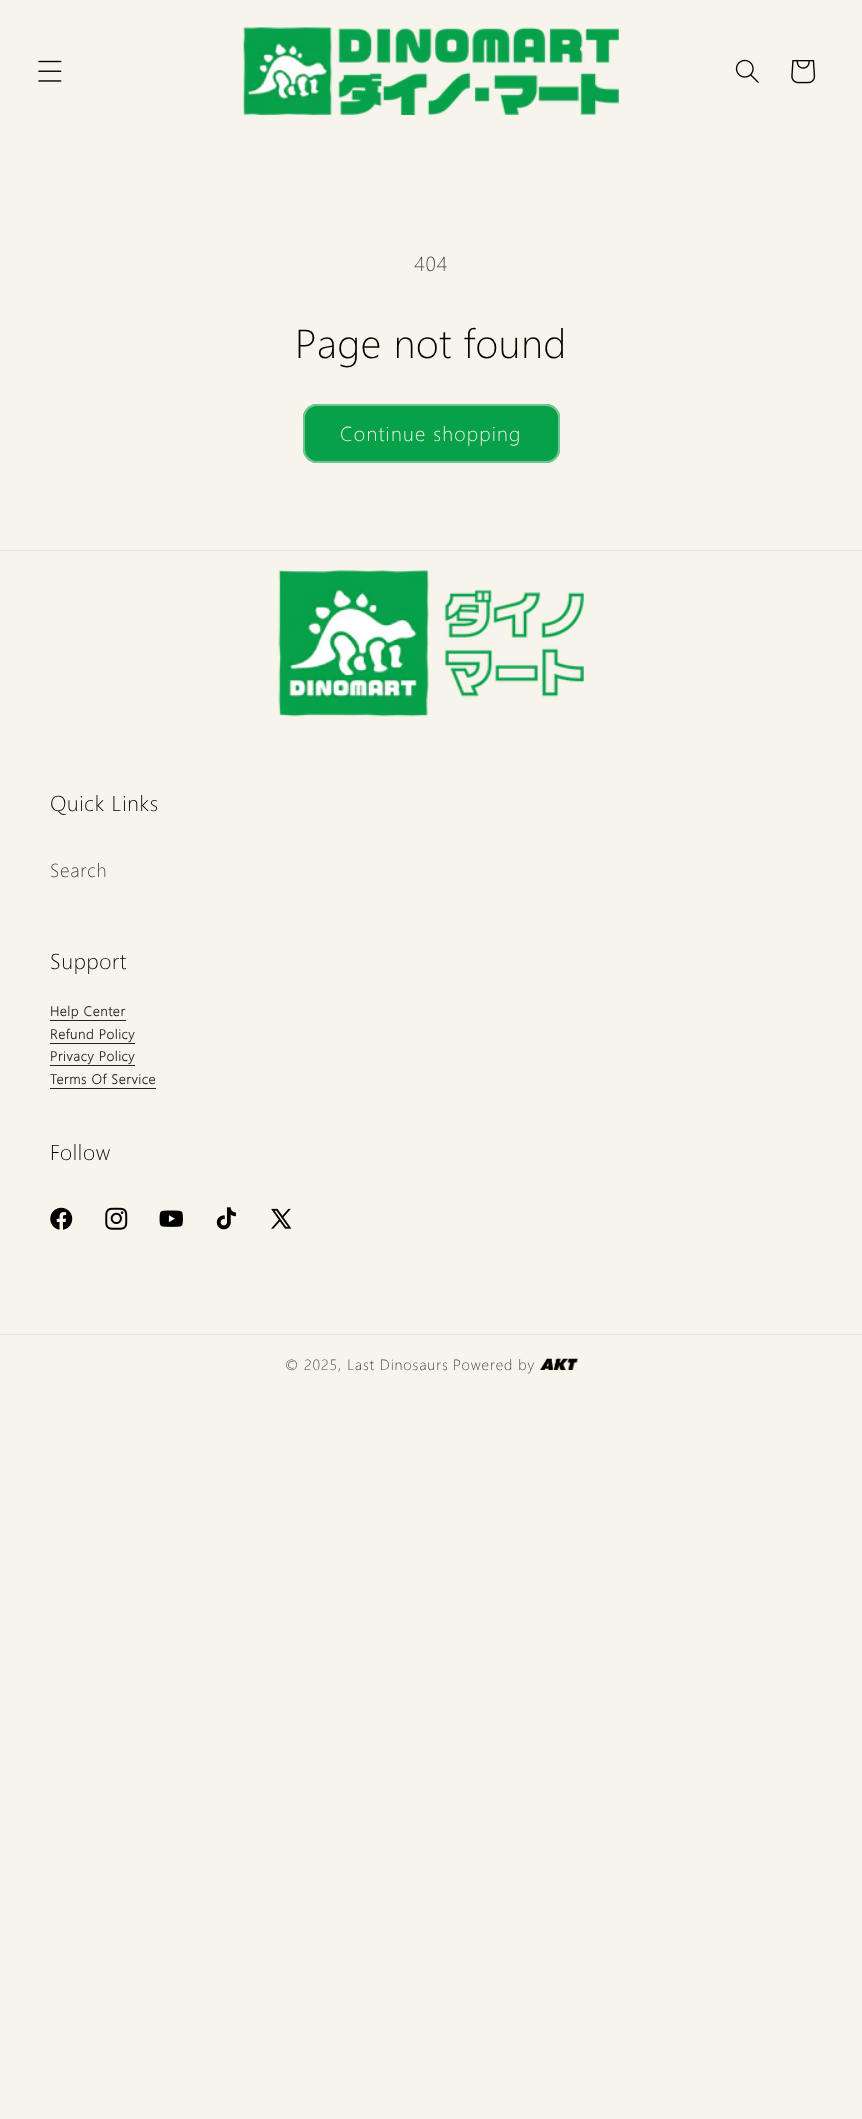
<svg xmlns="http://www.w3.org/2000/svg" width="862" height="2119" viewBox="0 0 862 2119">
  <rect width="100%" height="100%" fill="rgb(247,244,235)"/>
  <image x="38" y="60" width="24" height="22" href="pic1.png"/>
  <image x="243" y="27" width="376" height="88" href="pic2.png"/>
  <image x="735" y="59" width="24" height="24" href="pic3.png"/>
  <image x="791" y="60" width="25" height="24" href="pic4.png"/>
  <text x="414" y="271" font-family="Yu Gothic" font-size="18.75" letter-spacing="0.75" fill="rgb(62,61,59)">404</text>
  <text x="295" y="358" font-family="Yu Gothic" font-size="37.5" letter-spacing="0.75" fill="rgb(0,0,0)">Page not found</text>
  <rect x="303" y="404" width="257" height="59" rx="14" fill="rgb(7,161,74)"/>
  <rect x="303.5" y="404.5" width="256" height="58" rx="13.5" fill="none" stroke="rgb(7,161,74)"/>
  <rect x="304" y="405" width="255" height="57" rx="13" fill="none" stroke="rgba(247,244,235,0.45)" stroke-width="2"/>
  <text x="340" y="441" font-family="Yu Gothic" font-size="18.75" letter-spacing="1.25" fill="rgb(247,244,235)">Continue shopping</text>
  <rect x="0" y="550" width="862" height="1" fill="rgb(227,224,216)"/>
  <image x="278" y="570" width="306" height="147" href="pic5.png"/>
  <text x="50" y="811" font-family="Yu Gothic" font-size="20" letter-spacing="0.75" fill="rgb(0,0,0)">Quick Links</text>
  <text x="50" y="877" font-family="Yu Gothic" font-size="17.5" letter-spacing="0.75" fill="rgb(62,61,59)">Search</text>
  <text x="50" y="969" font-family="Yu Gothic" font-size="20" letter-spacing="0.75" fill="rgb(0,0,0)">Support</text>
  <text x="50" y="1016" font-family="Yu Gothic" font-size="12.5" font-weight="bold" letter-spacing="0.75" fill="rgb(37,37,35)">Help Center</text>
  <rect x="50" y="1020" width="76" height="1" fill="rgb(37,37,35)"/>
  <text x="50" y="1039" font-family="Yu Gothic" font-size="12.5" font-weight="bold" letter-spacing="0.75" fill="rgb(37,37,35)">Refund Policy</text>
  <rect x="50" y="1043" width="85" height="1" fill="rgb(37,37,35)"/>
  <text x="50" y="1061" font-family="Yu Gothic" font-size="12.5" font-weight="bold" letter-spacing="0.75" fill="rgb(37,37,35)">Privacy Policy</text>
  <rect x="50" y="1065" width="85" height="1" fill="rgb(37,37,35)"/>
  <text x="50" y="1084" font-family="Yu Gothic" font-size="12.5" font-weight="bold" letter-spacing="0.75" fill="rgb(37,37,35)">Terms Of Service</text>
  <rect x="50" y="1088" width="106" height="1" fill="rgb(37,37,35)"/>
  <text x="50" y="1160" font-family="Yu Gothic" font-size="20" letter-spacing="0.75" fill="rgb(0,0,0)">Follow</text>
  <image x="50" y="1207" width="23" height="23" href="pic6.png"/>
  <image x="105" y="1207" width="23" height="23" href="pic7.png"/>
  <image x="159" y="1210" width="24" height="17" href="pic8.png"/>
  <image x="216" y="1207" width="20" height="23" href="pic9.png"/>
  <image x="271" y="1208" width="21" height="21" href="pic10.png"/>
  <rect x="0" y="1334" width="862" height="1" fill="rgb(227,224,216)"/>
  <g font-family="Yu Gothic" font-size="13.75" letter-spacing="0.9" fill="rgb(62,61,59)">
    <text x="285" y="1370">© 2025, Last Dinosaurs</text>
    <text x="453" y="1370">Powered by</text>
  </g>
  <image x="540" y="1358" width="38" height="12" href="pic11.png"/>
</svg>
